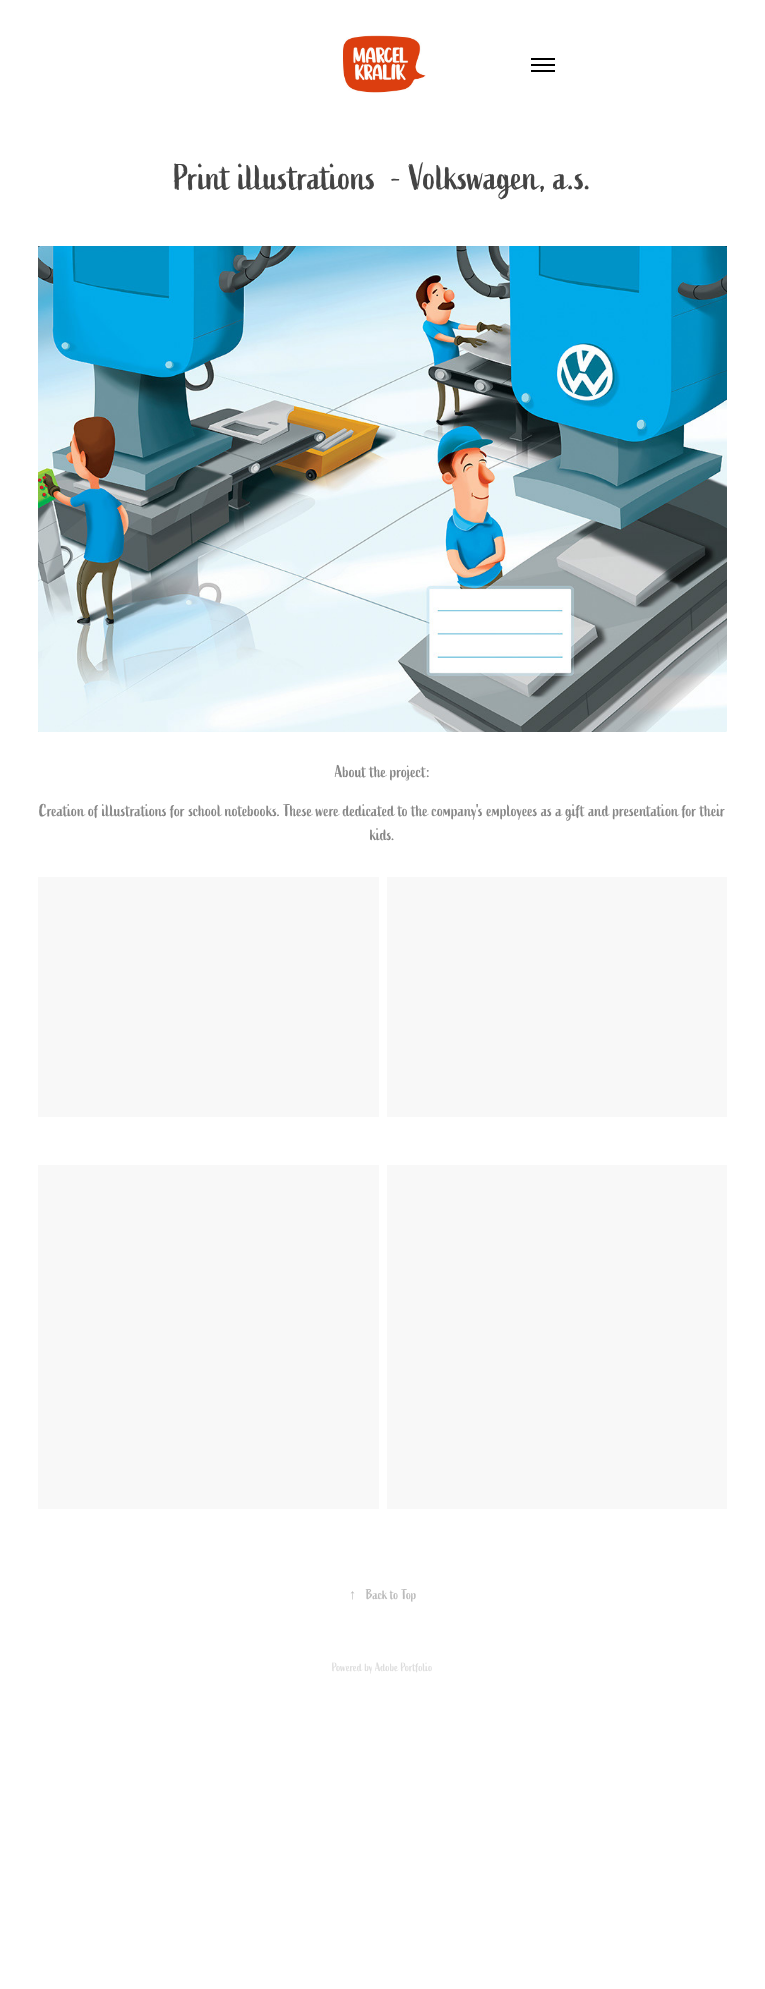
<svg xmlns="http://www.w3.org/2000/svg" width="765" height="1989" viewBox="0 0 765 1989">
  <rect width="100%" height="100%" fill="rgb(255,255,255)"/>
  <image x="342" y="35" width="84" height="58" href="pic1.png"/>
  <rect x="531" y="58" width="24" height="2" fill="rgb(0,0,0)"/>
  <rect x="531" y="64" width="24" height="2" fill="rgb(0,0,0)"/>
  <rect x="531" y="70" width="24" height="2" fill="rgb(0,0,0)"/>
  <text x="174" y="189" font-family="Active" font-size="36" fill="rgb(68,68,68)" xml:space="preserve">Print illustrations  - Volkswagen, a.s.</text>
  <image x="38" y="246" width="689" height="486" href="pic2.png"/>
  <g font-family="Active" font-size="17" fill="rgb(136,136,136)">
    <text x="335" y="777">About the project:</text>
    <text x="39" y="816">Creation of illustrations for school notebooks. These were dedicated to the company's employees as a gift and presentation for their</text>
    <text x="370" y="840">kids.</text>
  </g>
  <rect x="38" y="877" width="341" height="240" fill="rgb(248,248,248)"/>
  <rect x="387" y="877" width="340" height="240" fill="rgb(248,248,248)"/>
  <rect x="38" y="1165" width="341" height="344" fill="rgb(248,248,248)"/>
  <rect x="387" y="1165" width="340" height="344" fill="rgb(248,248,248)"/>
  <text x="349" y="1599" font-family="Liberation Serif" font-size="14" fill="rgb(187,187,187)">↑</text>
  <text x="366" y="1599" font-family="Active" font-size="14" fill="rgb(187,187,187)">Back to Top</text>
  <text x="332" y="1671" font-family="Active" font-size="12" fill="rgb(221,221,221)">Powered by Adobe Portfolio</text>
</svg>
